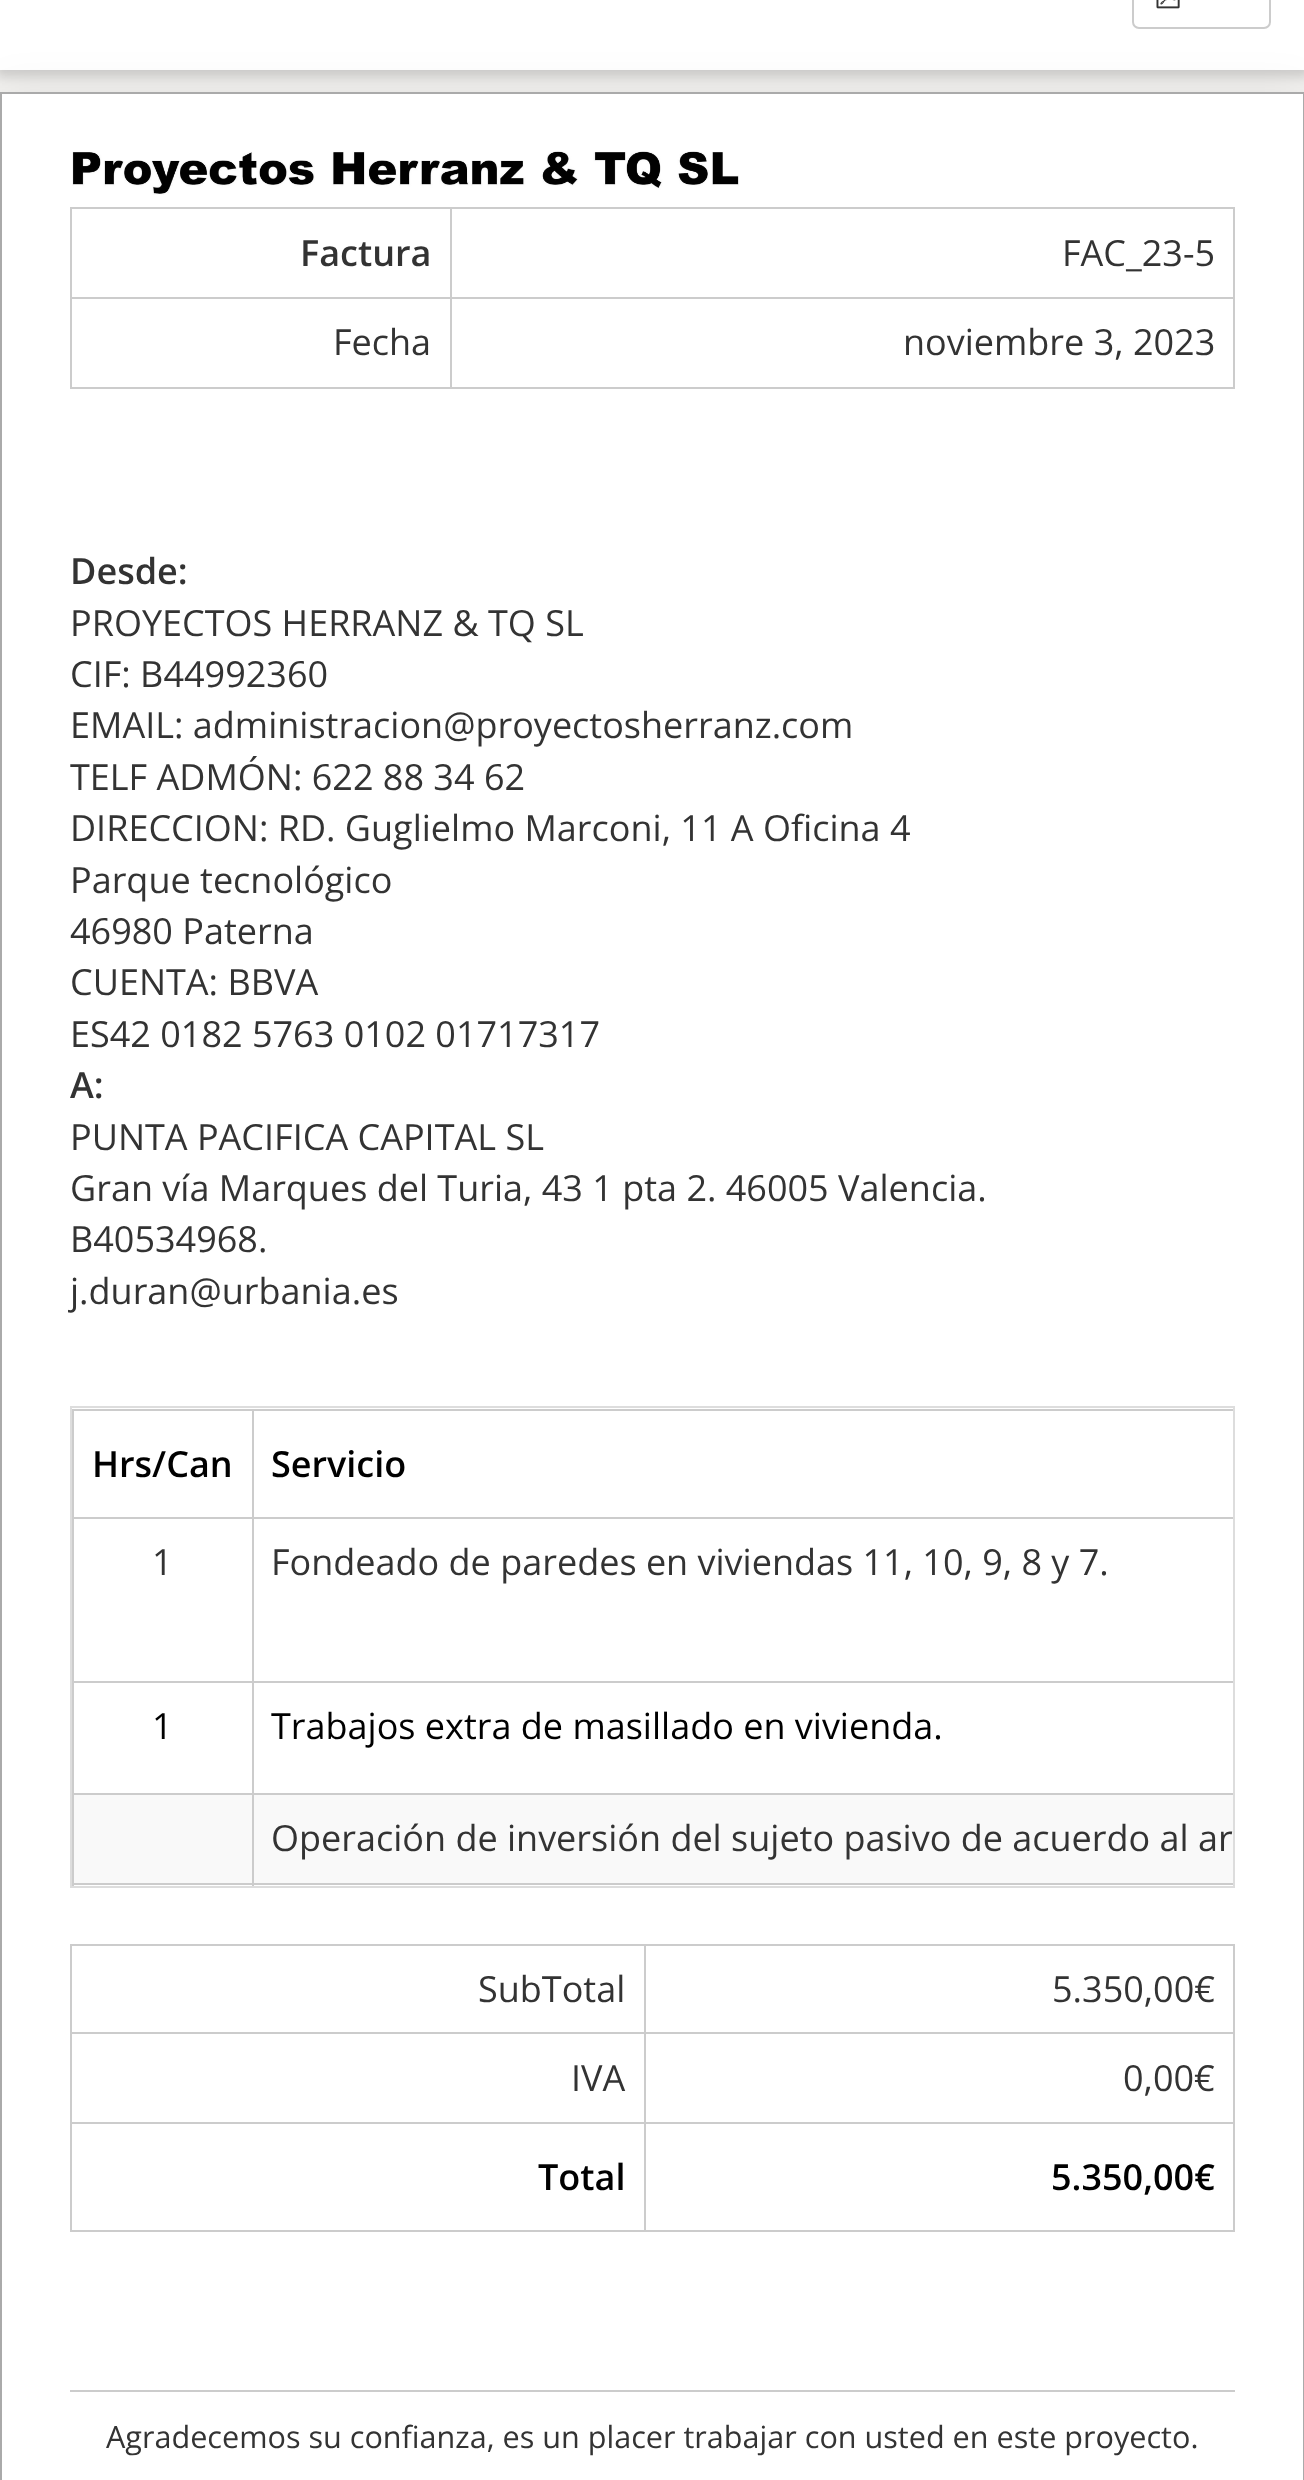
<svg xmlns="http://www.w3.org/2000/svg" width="1304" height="2480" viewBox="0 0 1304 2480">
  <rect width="100%" height="100%" fill="rgb(242,241,239)"/>
  <rect x="-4" y="-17" width="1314" height="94" fill="rgba(0,0,0,0.15)" filter="blur(5.5px)"/>
  <rect x="0" y="0" width="1304" height="70" fill="rgb(255,255,255)"/>
  <rect x="1133" y="-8" width="137" height="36" rx="6" fill="none" stroke="rgb(204,204,204)" stroke-width="2"/>
  <image x="1156" y="0" width="24" height="9" href="pic1.png"/>
  <rect x="0" y="92" width="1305" height="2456" fill="rgba(0,0,0,0.07)" filter="blur(22.5px)"/>
  <rect x="1" y="93" width="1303" height="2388" fill="rgb(255,255,255)" stroke="rgb(170,170,170)" stroke-width="2"/>
  <image x="72" y="151" width="667" height="44" href="pic2.png"/>
  <rect x="70" y="207" width="1165" height="2" fill="rgb(204,204,204)"/>
  <rect x="1233" y="207" width="2" height="182" fill="rgb(204,204,204)"/>
  <rect x="70" y="387" width="1165" height="2" fill="rgb(204,204,204)"/>
  <rect x="70" y="207" width="2" height="182" fill="rgb(204,204,204)"/>
  <text x="300" y="266" font-family="Open Sans" font-size="36" font-weight="600" fill="rgb(51,51,51)">Factura</text>
  <rect x="450" y="297" width="785" height="2" fill="rgb(204,204,204)"/>
  <rect x="450" y="297" width="2" height="92" fill="rgb(204,204,204)"/>
  <rect x="70" y="297" width="382" height="2" fill="rgb(204,204,204)"/>
  <rect x="450" y="207" width="2" height="92" fill="rgb(204,204,204)"/>
  <g font-family="Open Sans" font-size="36" fill="rgb(51,51,51)">
    <text x="1062" y="266">FAC_23-5</text>
    <text x="333" y="355">Fecha</text>
    <text x="903" y="355">noviembre 3, 2023</text>
  </g>
  <text x="70" y="584" font-family="Open Sans" font-size="36" font-weight="600" fill="rgb(51,51,51)">Desde:</text>
  <g font-family="Open Sans" font-size="36" fill="rgb(51,51,51)">
    <text>
      <tspan x="70" y="636">PROYECTOS HERRANZ &amp; TQ SL</tspan>
      <tspan x="70" y="687">CIF: B44992360</tspan>
      <tspan x="70" y="738">EMAIL: administracion@proyectosherranz.com</tspan>
      <tspan x="70" y="790">TELF ADMÓN: 622 88 34 62</tspan>
      <tspan x="70" y="841">DIRECCION: RD. Guglielmo Marconi, 11 A Oficina 4</tspan>
      <tspan x="70" y="893">Parque tecnológico</tspan>
      <tspan x="70" y="944">46980 Paterna</tspan>
      <tspan x="70" y="995">CUENTA: BBVA</tspan>
      <tspan x="70" y="1047">ES42 0182 5763 0102 01717317</tspan>
    </text>
  </g>
  <text x="70" y="1098" font-family="Open Sans" font-size="36" font-weight="600" fill="rgb(51,51,51)">A:</text>
  <g font-family="Open Sans" font-size="36" fill="rgb(51,51,51)">
    <text>
      <tspan x="70" y="1150">PUNTA PACIFICA CAPITAL SL</tspan>
      <tspan x="70" y="1201">Gran vía Marques del Turia, 43 1 pta 2. 46005 Valencia.</tspan>
      <tspan x="70" y="1252">B40534968.</tspan>
      <tspan x="70" y="1304">j.duran@urbania.es</tspan>
    </text>
  </g>
  <rect x="71" y="1407" width="1163" height="480" fill="none" stroke="rgb(221,221,221)" stroke-width="2"/>
  <rect x="72" y="1409" width="1161" height="2" fill="rgb(204,204,204)"/>
  <rect x="72" y="1883" width="1161" height="2" fill="rgb(204,204,204)"/>
  <rect x="72" y="1409" width="2" height="477" fill="rgb(204,204,204)"/>
  <text x="92" y="1477" font-family="Open Sans" font-size="36" font-weight="600" fill="rgb(0,0,0)">Hrs/Can</text>
  <rect x="252" y="1517" width="981" height="2" fill="rgb(204,204,204)"/>
  <rect x="252" y="1681" width="981" height="2" fill="rgb(204,204,204)"/>
  <rect x="74" y="1795" width="1159" height="88" fill="rgb(249,249,249)"/>
  <rect x="252" y="1793" width="981" height="2" fill="rgb(204,204,204)"/>
  <rect x="252" y="1793" width="2" height="93" fill="rgb(204,204,204)"/>
  <rect x="72" y="1793" width="182" height="2" fill="rgb(204,204,204)"/>
  <rect x="252" y="1681" width="2" height="115" fill="rgb(204,204,204)"/>
  <rect x="72" y="1681" width="182" height="2" fill="rgb(204,204,204)"/>
  <rect x="252" y="1517" width="2" height="166" fill="rgb(204,204,204)"/>
  <rect x="72" y="1517" width="182" height="2" fill="rgb(204,204,204)"/>
  <rect x="252" y="1409" width="2" height="110" fill="rgb(204,204,204)"/>
  <text x="271" y="1477" font-family="Open Sans" font-size="36" font-weight="600" fill="rgb(0,0,0)">Servicio</text>
  <g font-family="Open Sans" font-size="36" fill="rgb(51,51,51)">
    <text x="152" y="1575">1</text>
    <text x="271" y="1575">Fondeado de paredes en viviendas 11, 10, 9, 8 y 7.</text>
  </g>
  <g font-family="Open Sans" font-size="36" fill="rgb(0,0,0)">
    <text x="152" y="1739">1</text>
    <text x="271" y="1739">Trabajos extra de masillado en vivienda.</text>
  </g>
  <text x="271" y="1851" font-family="Open Sans" font-size="36" fill="rgb(51,51,51)">Operación de inversión del sujeto pasivo de acuerdo al ar</text>
  <rect x="70" y="1944" width="1165" height="2" fill="rgb(204,204,204)"/>
  <rect x="1233" y="1944" width="2" height="288" fill="rgb(204,204,204)"/>
  <rect x="70" y="2230" width="1165" height="2" fill="rgb(204,204,204)"/>
  <rect x="70" y="1944" width="2" height="288" fill="rgb(204,204,204)"/>
  <text x="478" y="2002" font-family="Open Sans" font-size="36" fill="rgb(51,51,51)">SubTotal</text>
  <rect x="644" y="2032" width="591" height="2" fill="rgb(204,204,204)"/>
  <rect x="644" y="2122" width="591" height="2" fill="rgb(204,204,204)"/>
  <rect x="644" y="2122" width="2" height="110" fill="rgb(204,204,204)"/>
  <rect x="70" y="2122" width="576" height="2" fill="rgb(204,204,204)"/>
  <rect x="644" y="2032" width="2" height="92" fill="rgb(204,204,204)"/>
  <rect x="70" y="2032" width="576" height="2" fill="rgb(204,204,204)"/>
  <rect x="644" y="1944" width="2" height="90" fill="rgb(204,204,204)"/>
  <g font-family="Open Sans" font-size="36" fill="rgb(51,51,51)">
    <text x="1052" y="2002">5.350,00€</text>
    <text x="571" y="2091">IVA</text>
    <text x="1123" y="2091">0,00€</text>
  </g>
  <g font-family="Open Sans" font-size="36" font-weight="600" fill="rgb(0,0,0)">
    <text x="538" y="2190">Total</text>
    <text x="1051" y="2190">5.350,00€</text>
  </g>
  <rect x="70" y="2390" width="1165" height="2" fill="rgb(204,204,204)"/>
  <text x="106" y="2448" font-family="Open Sans" font-size="30.6" fill="rgb(51,51,51)">Agradecemos su confianza, es un placer trabajar con usted en este proyecto.</text>
</svg>
